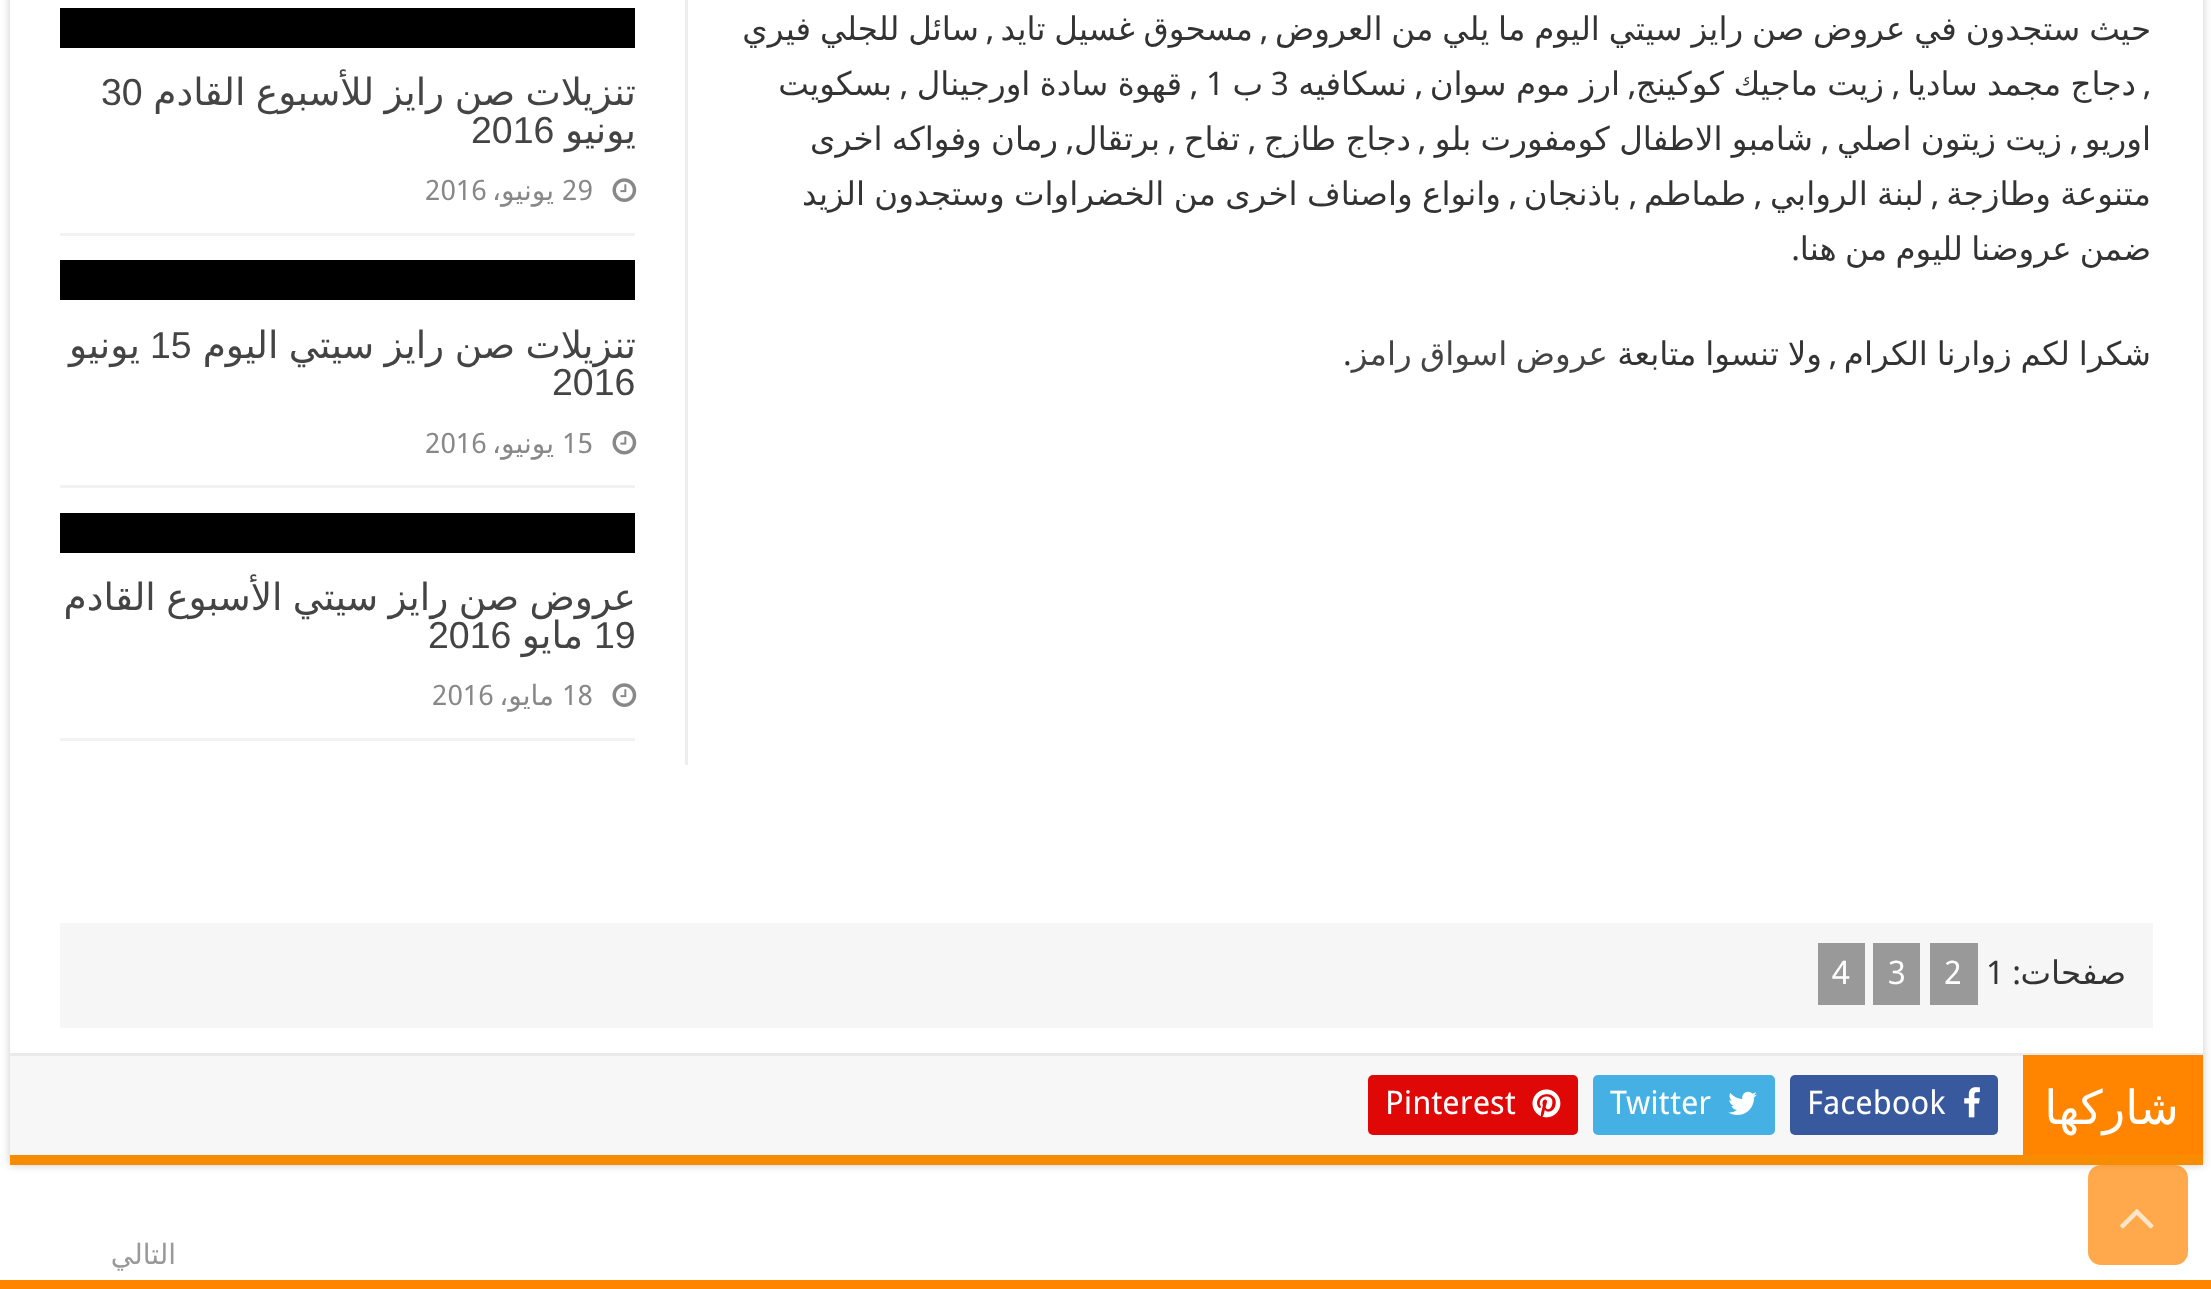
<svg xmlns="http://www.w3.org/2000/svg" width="2211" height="1289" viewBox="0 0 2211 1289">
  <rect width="100%" height="100%" fill="rgb(255,255,255)"/>
  <rect x="10" y="-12" width="2193" height="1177" fill="rgb(202,202,202)" filter="blur(4px)"/>
  <rect x="10" y="0" width="2193" height="1053" fill="rgb(255,255,255)"/>
  <rect x="10" y="1155" width="2193" height="10" fill="rgb(248,140,0)"/>
  <text x="2151" y="40" word-spacing="-1.5" font-family="DejaVu Sans" font-size="32.5" direction="rtl" fill="rgb(51,51,51)">حيث ستجدون في عروض صن رايز سيتي اليوم ما يلي من العروض</text>
  <text x="1268" y="40" font-family="Droid Sans" font-size="32.5" direction="rtl" fill="rgb(51,51,51)">,</text>
  <text x="1253" y="40" word-spacing="-1.5" font-family="DejaVu Sans" font-size="32.5" direction="rtl" fill="rgb(51,51,51)">مسحوق غسيل تايد</text>
  <text x="994" y="40" font-family="Droid Sans" font-size="32.5" direction="rtl" fill="rgb(51,51,51)">,</text>
  <text x="979" y="40" word-spacing="-1.5" font-family="DejaVu Sans" font-size="32.5" direction="rtl" fill="rgb(51,51,51)">سائل للجلي فيري</text>
  <text x="2151" y="95" font-family="Droid Sans" font-size="32.5" direction="rtl" fill="rgb(51,51,51)">,</text>
  <text x="2136" y="95" word-spacing="-1" font-family="DejaVu Sans" font-size="32.5" direction="rtl" fill="rgb(51,51,51)">دجاج مجمد ساديا</text>
  <text x="1900" y="95" font-family="Droid Sans" font-size="32.5" direction="rtl" fill="rgb(51,51,51)">,</text>
  <text x="1884" y="95" word-spacing="-1" font-family="DejaVu Sans" font-size="32.5" direction="rtl" fill="rgb(51,51,51)">زيت ماجيك كوكينج</text>
  <text x="1636" y="95" font-family="Droid Sans" font-size="32.5" direction="rtl" fill="rgb(51,51,51)">,</text>
  <text x="1620" y="95" word-spacing="-1" font-family="DejaVu Sans" font-size="32.5" direction="rtl" fill="rgb(51,51,51)">ارز موم سوان</text>
  <text x="1423" y="95" font-family="Droid Sans" font-size="32.5" direction="rtl" fill="rgb(51,51,51)">,</text>
  <text x="1407" y="95" font-family="DejaVu Sans" font-size="32.5" direction="rtl" fill="rgb(51,51,51)">نسكافيه</text>
  <text x="1271" y="95" font-family="Droid Sans" font-size="32.5" fill="rgb(51,51,51)">3</text>
  <text x="1263" y="95" font-family="DejaVu Sans" font-size="32.5" direction="rtl" fill="rgb(51,51,51)">ب</text>
  <text x="1206" y="95" font-family="Droid Sans" font-size="32.5" fill="rgb(51,51,51)">1</text>
  <text x="1198" y="95" font-family="Droid Sans" font-size="32.5" direction="rtl" fill="rgb(51,51,51)">,</text>
  <text x="1182" y="95" word-spacing="-1" font-family="DejaVu Sans" font-size="32.5" direction="rtl" fill="rgb(51,51,51)">قهوة سادة اورجينال</text>
  <text x="908" y="95" font-family="Droid Sans" font-size="32.5" direction="rtl" fill="rgb(51,51,51)">,</text>
  <g font-family="DejaVu Sans" font-size="32.5" direction="rtl" fill="rgb(51,51,51)">
    <text x="892" y="95">بسكويت</text>
    <text x="2151" y="150">اوريو</text>
  </g>
  <text x="2078" y="150" font-family="Droid Sans" font-size="32.5" direction="rtl" fill="rgb(51,51,51)">,</text>
  <text x="2062" y="150" word-spacing="-1" font-family="DejaVu Sans" font-size="32.5" direction="rtl" fill="rgb(51,51,51)">زيت زيتون اصلي</text>
  <text x="1829" y="150" font-family="Droid Sans" font-size="32.5" direction="rtl" fill="rgb(51,51,51)">,</text>
  <text x="1813" y="150" word-spacing="-1" font-family="DejaVu Sans" font-size="32.5" direction="rtl" fill="rgb(51,51,51)">شامبو الاطفال كومفورت بلو</text>
  <text x="1426" y="150" font-family="Droid Sans" font-size="32.5" direction="rtl" fill="rgb(51,51,51)">,</text>
  <text x="1411" y="150" word-spacing="-1" font-family="DejaVu Sans" font-size="32.5" direction="rtl" fill="rgb(51,51,51)">دجاج طازج</text>
  <text x="1256" y="150" font-family="Droid Sans" font-size="32.5" direction="rtl" fill="rgb(51,51,51)">,</text>
  <text x="1240" y="150" font-family="DejaVu Sans" font-size="32.5" direction="rtl" fill="rgb(51,51,51)">تفاح</text>
  <text x="1176" y="150" font-family="Droid Sans" font-size="32.5" direction="rtl" fill="rgb(51,51,51)">,</text>
  <text x="1160" y="150" font-family="DejaVu Sans" font-size="32.5" direction="rtl" fill="rgb(51,51,51)">برتقال</text>
  <text x="1074" y="150" font-family="Droid Sans" font-size="32.5" direction="rtl" fill="rgb(51,51,51)">,</text>
  <g font-family="DejaVu Sans" font-size="32.5" direction="rtl" fill="rgb(51,51,51)">
    <text x="1058" y="150" word-spacing="-1">رمان وفواكه اخرى</text>
    <text x="2151" y="205" word-spacing="-1">متنوعة وطازجة</text>
  </g>
  <text x="1939" y="205" font-family="Droid Sans" font-size="32.5" direction="rtl" fill="rgb(51,51,51)">,</text>
  <text x="1924" y="205" word-spacing="-1" font-family="DejaVu Sans" font-size="32.5" direction="rtl" fill="rgb(51,51,51)">لبنة الروابي</text>
  <text x="1762" y="205" font-family="Droid Sans" font-size="32.5" direction="rtl" fill="rgb(51,51,51)">,</text>
  <text x="1746" y="205" font-family="DejaVu Sans" font-size="32.5" direction="rtl" fill="rgb(51,51,51)">طماطم</text>
  <text x="1637" y="205" font-family="Droid Sans" font-size="32.5" direction="rtl" fill="rgb(51,51,51)">,</text>
  <text x="1621" y="205" font-family="DejaVu Sans" font-size="32.5" direction="rtl" fill="rgb(51,51,51)">باذنجان</text>
  <text x="1517" y="205" font-family="Droid Sans" font-size="32.5" direction="rtl" fill="rgb(51,51,51)">,</text>
  <g font-family="DejaVu Sans" font-size="32.5" direction="rtl" fill="rgb(51,51,51)">
    <text x="1501" y="205" word-spacing="-1">وانواع واصناف اخرى من الخضراوات وستجدون الزيد</text>
    <text x="2151" y="260" word-spacing="-2">ضمن عروضنا لليوم من هنا</text>
  </g>
  <text x="1800" y="260" font-family="Droid Sans" font-size="32.5" direction="rtl" fill="rgb(51,51,51)">.</text>
  <rect x="685" y="0" width="3" height="765" fill="rgb(238,238,238)"/>
  <rect x="60" y="8" width="575" height="40" fill="rgb(0,0,0)"/>
  <text x="636" y="105" word-spacing="-1.5" font-family="DejaVu Sans" font-size="37.5" direction="rtl" fill="rgb(68,68,68)">تنزيلات صن رايز للأسبوع القادم</text>
  <text x="101" y="105" font-family="Liberation Sans" font-size="37.5" fill="rgb(68,68,68)">30</text>
  <text x="636" y="143" font-family="DejaVu Sans" font-size="37.5" direction="rtl" fill="rgb(68,68,68)">يونيو</text>
  <text x="471" y="143" font-family="Liberation Sans" font-size="37.5" fill="rgb(68,68,68)">2016</text>
  <rect x="60" y="233" width="575" height="3" fill="rgb(242,242,242)"/>
  <image x="612" y="178" width="25" height="24" href="pic1.png"/>
  <text x="562" y="200" font-family="Droid Sans" font-size="28" fill="rgb(136,136,136)">29</text>
  <text x="554" y="200" font-family="DejaVu Sans" font-size="28" direction="rtl" fill="rgb(136,136,136)">يونيو،</text>
  <text x="425" y="200" font-family="Droid Sans" font-size="28" fill="rgb(136,136,136)">2016</text>
  <rect x="60" y="260" width="575" height="40" fill="rgb(0,0,0)"/>
  <text x="636" y="358" word-spacing="-1.5" font-family="DejaVu Sans" font-size="37.5" direction="rtl" fill="rgb(68,68,68)">تنزيلات صن رايز سيتي اليوم</text>
  <text x="150" y="358" font-family="Liberation Sans" font-size="37.5" fill="rgb(68,68,68)">15</text>
  <text x="140" y="358" font-family="DejaVu Sans" font-size="37.5" direction="rtl" fill="rgb(68,68,68)">يونيو</text>
  <text x="552" y="395" font-family="Liberation Sans" font-size="37.5" fill="rgb(68,68,68)">2016</text>
  <rect x="60" y="485" width="575" height="3" fill="rgb(242,242,242)"/>
  <image x="612" y="430" width="25" height="25" href="pic2.png"/>
  <text x="562" y="453" font-family="Droid Sans" font-size="28" fill="rgb(136,136,136)">15</text>
  <text x="554" y="453" font-family="DejaVu Sans" font-size="28" direction="rtl" fill="rgb(136,136,136)">يونيو،</text>
  <text x="425" y="453" font-family="Droid Sans" font-size="28" fill="rgb(136,136,136)">2016</text>
  <rect x="60" y="513" width="575" height="40" fill="rgb(0,0,0)"/>
  <text x="636" y="610" word-spacing="-1.5" font-family="DejaVu Sans" font-size="37.5" direction="rtl" fill="rgb(68,68,68)">عروض صن رايز سيتي الأسبوع القادم</text>
  <text x="594" y="648" font-family="Liberation Sans" font-size="37.5" fill="rgb(68,68,68)">19</text>
  <text x="583" y="648" font-family="DejaVu Sans" font-size="37.5" direction="rtl" fill="rgb(68,68,68)">مايو</text>
  <text x="428" y="648" font-family="Liberation Sans" font-size="37.5" fill="rgb(68,68,68)">2016</text>
  <rect x="60" y="738" width="575" height="3" fill="rgb(242,242,242)"/>
  <image x="612" y="683" width="25" height="24" href="pic1.png"/>
  <text x="562" y="705" font-family="Droid Sans" font-size="28" fill="rgb(136,136,136)">18</text>
  <text x="554" y="705" font-family="DejaVu Sans" font-size="28" direction="rtl" fill="rgb(136,136,136)">مايو،</text>
  <text x="432" y="705" font-family="Droid Sans" font-size="28" fill="rgb(136,136,136)">2016</text>
  <text x="2151" y="365" word-spacing="-1.5" font-family="DejaVu Sans" font-size="32.5" direction="rtl" fill="rgb(51,51,51)">شكرا لكم زوارنا الكرام</text>
  <text x="1837" y="365" font-family="Droid Sans" font-size="32.5" direction="rtl" fill="rgb(51,51,51)">,</text>
  <text x="1822" y="365" word-spacing="-1.5" font-family="DejaVu Sans" font-size="32.5" direction="rtl" fill="rgb(51,51,51)">ولا تنسوا متابعة</text>
  <text x="1608" y="365" word-spacing="-2" font-family="DejaVu Sans" font-size="32.5" direction="rtl" fill="rgb(68,68,68)">عروض اسواق رامز</text>
  <text x="1343" y="365" font-family="Droid Sans" font-size="32.5" fill="rgb(51,51,51)">.</text>
  <rect x="60" y="923" width="2093" height="105" fill="rgb(246,246,246)"/>
  <text x="2126" y="984" font-family="DejaVu Sans" font-size="32.5" direction="rtl" fill="rgb(51,51,51)">صفحات</text>
  <text x="2021" y="984" font-family="Droid Sans" font-size="32.5" direction="rtl" fill="rgb(51,51,51)">:</text>
  <text x="1986" y="984" font-family="Droid Sans" font-size="32.5" fill="rgb(51,51,51)">1</text>
  <rect x="1930" y="943" width="48" height="62" fill="rgb(153,153,153)"/>
  <text x="1944" y="984" font-family="Droid Sans" font-size="32.5" fill="rgb(255,255,255)">2</text>
  <rect x="1873" y="943" width="47" height="62" fill="rgb(153,153,153)"/>
  <text x="1888" y="984" font-family="Droid Sans" font-size="32.5" fill="rgb(255,255,255)">3</text>
  <rect x="1818" y="943" width="47" height="62" fill="rgb(153,153,153)"/>
  <text x="1832" y="984" font-family="Droid Sans" font-size="32.5" fill="rgb(255,255,255)">4</text>
  <rect x="10" y="1056" width="2013" height="99" fill="rgb(247,247,247)"/>
  <rect x="10" y="1053" width="2193" height="3" fill="rgb(234,234,234)"/>
  <rect x="2023" y="1055" width="180" height="100" fill="rgb(255,133,0)"/>
  <text x="2179" y="1124" font-family="DejaVu Sans" font-size="47" direction="rtl" fill="rgb(255,255,255)">شاركها</text>
  <rect x="1790" y="1075" width="208" height="60" rx="5" fill="rgb(57,89,159)"/>
  <image x="1964" y="1087" width="16" height="31" href="pic3.png"/>
  <text x="1807" y="1114" font-family="Droid Sans" font-size="32.5" fill="rgb(255,255,255)">Facebook</text>
  <rect x="1593" y="1075" width="182" height="60" rx="5" fill="rgb(69,176,227)"/>
  <image x="1728" y="1091" width="29" height="24" href="pic4.png"/>
  <text x="1610" y="1114" font-family="Droid Sans" font-size="32.5" fill="rgb(255,255,255)">Twitter</text>
  <rect x="1368" y="1075" width="210" height="60" rx="5" fill="rgb(224,7,7)"/>
  <image x="1532" y="1089" width="29" height="29" href="pic5.png"/>
  <text x="1385" y="1114" font-family="Droid Sans" font-size="32.5" fill="rgb(255,255,255)">Pinterest</text>
  <text x="176" y="1264" font-family="DejaVu Sans" font-size="28" direction="rtl" fill="rgb(153,153,153)">التالي</text>
  <rect x="2088" y="1165" width="100" height="100" rx="13" fill="rgba(255,133,0,0.7)"/>
  <image x="2120" y="1209" width="34" height="20" href="pic6.png"/>
  <rect x="0" y="1280" width="2211" height="9" fill="rgb(255,133,0)"/>
</svg>
